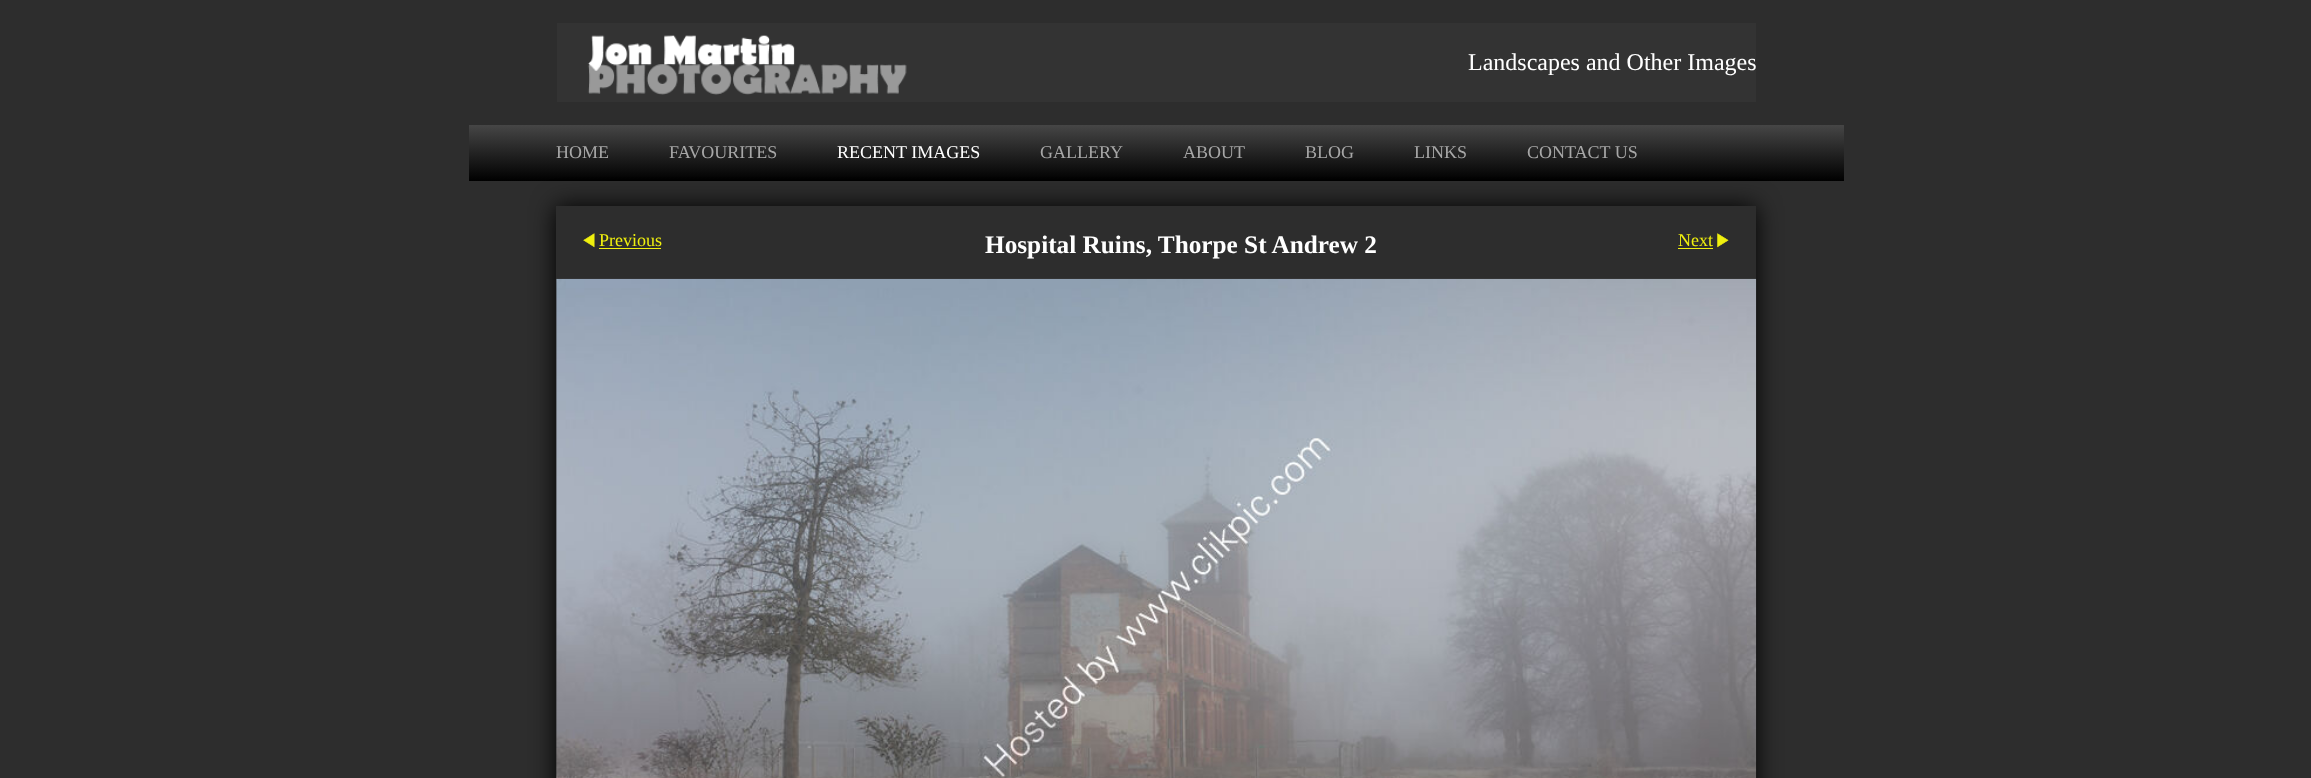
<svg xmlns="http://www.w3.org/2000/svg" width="2311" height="778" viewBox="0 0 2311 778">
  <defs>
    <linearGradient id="g1" gradientUnits="userSpaceOnUse" x1="1156" y1="125" x2="1156" y2="181"><stop offset="0" stop-color="rgb(70,70,70)"/><stop offset="1" stop-color="rgb(0,0,0)"/></linearGradient>
    <clipPath id="clip1"><path d="M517 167H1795V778H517ZM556 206H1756V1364H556Z" clip-rule="evenodd"/></clipPath>
  </defs>
  <rect width="100%" height="100%" fill="rgb(45,45,45)"/>
  <image x="557" y="23" width="1199" height="79" href="pic1.png"/>
  <text x="1468" y="70" font-family="Liberation Serif" font-size="24" fill="rgb(255,255,255)">Landscapes and Other Images</text>
  <rect x="469" y="125" width="1375" height="56" fill="url(#g1)"/>
  <g font-family="Liberation Serif" font-size="18" fill="rgb(167,167,167)">
    <text x="556" y="158">HOME</text>
    <text x="669" y="158">FAVOURITES</text>
  </g>
  <text x="837" y="158" font-family="Liberation Serif" font-size="18" fill="rgb(255,255,255)">RECENT IMAGES</text>
  <g font-family="Liberation Serif" font-size="18" fill="rgb(167,167,167)">
    <text x="1040" y="158">GALLERY</text>
    <text x="1183" y="158">ABOUT</text>
    <text x="1305" y="158">BLOG</text>
    <text x="1414" y="158">LINKS</text>
    <text x="1527" y="158">CONTACT US</text>
  </g>
  <g clip-path="url(#clip1)">
    <rect x="556" y="206" width="1200" height="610" fill="rgb(0,0,0)" filter="blur(12.5px)"/>
  </g>
  <image x="583" y="233" width="12" height="15" href="pic2.png"/>
  <text x="599" y="246" font-family="Liberation Serif" font-size="18" fill="rgb(240,240,14)">Previous</text>
  <rect x="599" y="248" width="62" height="1" fill="rgb(240,240,14)"/>
  <text x="1678" y="246" font-family="Liberation Serif" font-size="18" fill="rgb(240,240,14)">Next</text>
  <rect x="1678" y="248" width="35" height="1" fill="rgb(240,240,14)"/>
  <image x="1717" y="233" width="12" height="15" href="pic3.png"/>
  <text x="985" y="253" font-family="Liberation Serif" font-size="25.25" font-weight="bold" fill="rgb(255,255,255)">Hospital Ruins, Thorpe St Andrew 2</text>
  <image x="556" y="278" width="1201" height="500" href="pic4.png"/>
</svg>
